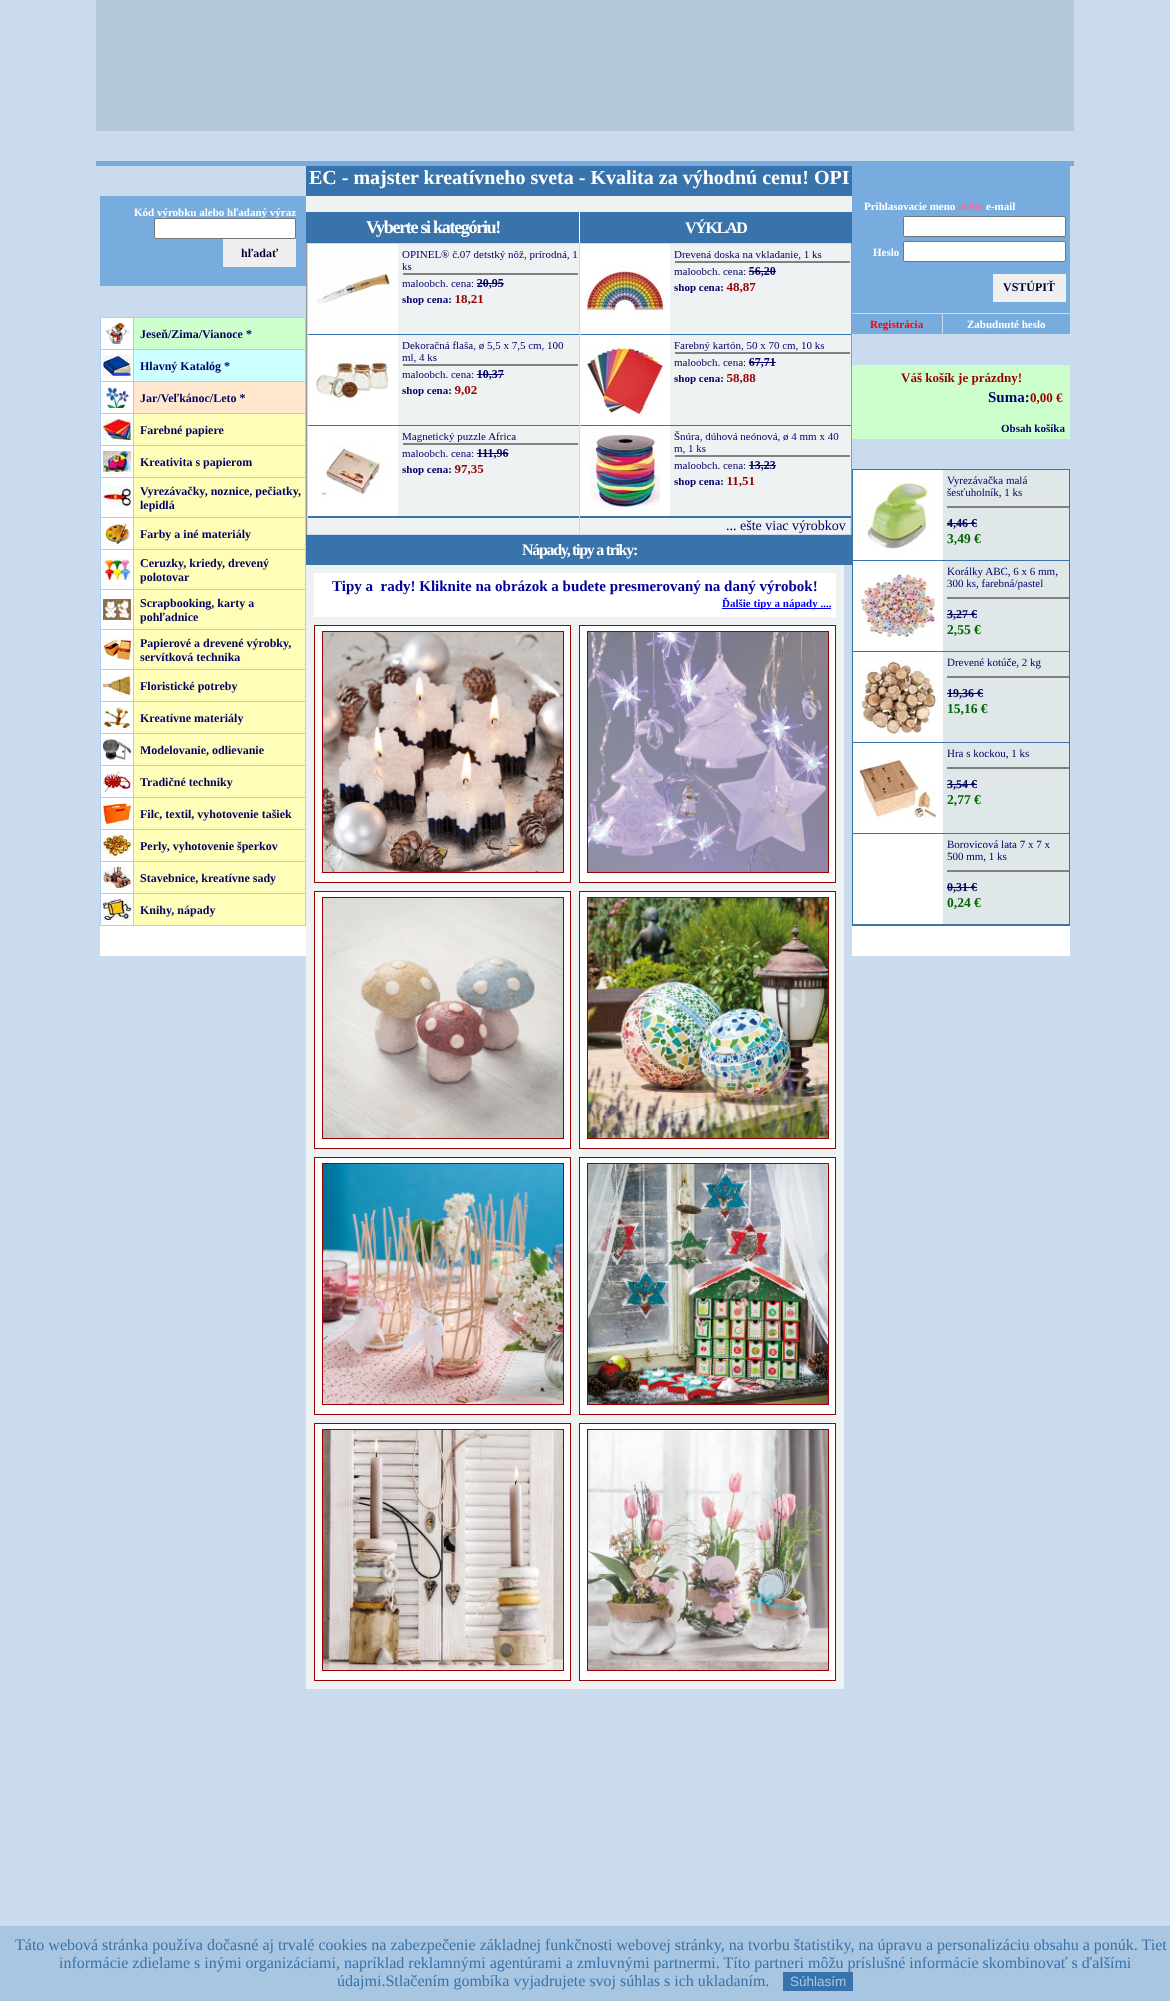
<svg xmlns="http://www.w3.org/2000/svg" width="1170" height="2001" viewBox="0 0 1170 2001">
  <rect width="100%" height="100%" fill="rgb(201,219,237)"/>
  <rect x="96" y="0" width="978" height="131" fill="rgb(181,200,215)"/>
  <rect x="96" y="161" width="978" height="5" fill="rgb(120,172,223)"/>
  <rect x="100" y="196" width="206" height="90" fill="rgb(120,172,223)"/>
  <text x="134" y="216" font-family="Liberation Serif" font-size="11" font-weight="bold" fill="rgb(255,255,255)">Kód výrobku alebo hľadaný výraz</text>
  <rect x="154.5" y="218.5" width="141" height="20" rx="1.5" fill="rgb(255,255,255)" stroke="rgb(118,118,118)"/>
  <rect x="223" y="239" width="73" height="28" fill="rgb(239,239,239)"/>
  <text x="241" y="257" font-family="Liberation Serif" font-size="12" font-weight="bold" fill="rgb(0,0,51)">hľadať</text>
  <rect x="100" y="317" width="206" height="609" fill="rgb(169,207,245)"/>
  <rect x="101" y="318" width="32" height="31" fill="rgb(255,255,255)"/>
  <image x="105" y="323" width="26" height="21" href="pic1.png"/>
  <rect x="134" y="318" width="171" height="31" fill="rgb(204,255,204)"/>
  <text x="140" y="338" font-family="Liberation Serif" font-size="12" font-weight="bold" fill="rgb(0,0,102)">Jeseň/Zima/Vianoce *</text>
  <rect x="101" y="350" width="32" height="31" fill="rgb(255,255,255)"/>
  <image x="103" y="355" width="28" height="21" href="pic2.png"/>
  <rect x="134" y="350" width="171" height="31" fill="rgb(204,255,255)"/>
  <text x="140" y="370" font-family="Liberation Serif" font-size="12" font-weight="bold" fill="rgb(0,0,102)">Hlavný Katalóg *</text>
  <rect x="101" y="382" width="32" height="31" fill="rgb(255,255,255)"/>
  <image x="103" y="387" width="28" height="21" href="pic3.png"/>
  <rect x="134" y="382" width="171" height="31" fill="rgb(255,230,204)"/>
  <text x="140" y="402" font-family="Liberation Serif" font-size="12" font-weight="bold" fill="rgb(0,0,102)">Jar/Veľkánoc/Leto *</text>
  <rect x="101" y="414" width="32" height="31" fill="rgb(255,255,255)"/>
  <image x="103" y="419" width="28" height="21" href="pic4.png"/>
  <rect x="134" y="414" width="171" height="31" fill="rgb(255,254,184)"/>
  <text x="140" y="434" font-family="Liberation Serif" font-size="12" font-weight="bold" fill="rgb(0,0,102)">Farebné papiere</text>
  <rect x="101" y="446" width="32" height="31" fill="rgb(255,255,255)"/>
  <image x="103" y="451" width="28" height="21" href="pic5.png"/>
  <rect x="134" y="446" width="171" height="31" fill="rgb(255,254,184)"/>
  <text x="140" y="466" font-family="Liberation Serif" font-size="12" font-weight="bold" fill="rgb(0,0,102)">Kreativita s papierom</text>
  <rect x="101" y="478" width="32" height="39" fill="rgb(255,255,255)"/>
  <image x="103" y="487" width="28" height="21" href="pic6.png"/>
  <rect x="134" y="478" width="171" height="39" fill="rgb(255,254,184)"/>
  <g font-family="Liberation Serif" font-size="12" font-weight="bold" fill="rgb(0,0,102)">
    <text>
      <tspan x="140" y="495">Vyrezávačky, noznice, pečiatky,</tspan>
      <tspan x="140" y="509">lepidlá</tspan>
    </text>
  </g>
  <rect x="101" y="518" width="32" height="31" fill="rgb(255,255,255)"/>
  <image x="103" y="523" width="28" height="21" href="pic7.png"/>
  <rect x="134" y="518" width="171" height="31" fill="rgb(255,254,184)"/>
  <text x="140" y="538" font-family="Liberation Serif" font-size="12" font-weight="bold" fill="rgb(0,0,102)">Farby a iné materiály</text>
  <rect x="101" y="550" width="32" height="39" fill="rgb(255,255,255)"/>
  <image x="103" y="559" width="28" height="21" href="pic8.png"/>
  <rect x="134" y="550" width="171" height="39" fill="rgb(255,254,184)"/>
  <g font-family="Liberation Serif" font-size="12" font-weight="bold" fill="rgb(0,0,102)">
    <text>
      <tspan x="140" y="567">Ceruzky, kriedy, drevený</tspan>
      <tspan x="140" y="581">polotovar</tspan>
    </text>
  </g>
  <rect x="101" y="590" width="32" height="39" fill="rgb(255,255,255)"/>
  <image x="103" y="599" width="28" height="21" href="pic9.png"/>
  <rect x="134" y="590" width="171" height="39" fill="rgb(255,254,184)"/>
  <g font-family="Liberation Serif" font-size="12" font-weight="bold" fill="rgb(0,0,102)">
    <text>
      <tspan x="140" y="607">Scrapbooking, karty a</tspan>
      <tspan x="140" y="621">pohľadnice</tspan>
    </text>
  </g>
  <rect x="101" y="630" width="32" height="39" fill="rgb(255,255,255)"/>
  <image x="103" y="639" width="28" height="21" href="pic10.png"/>
  <rect x="134" y="630" width="171" height="39" fill="rgb(255,254,184)"/>
  <g font-family="Liberation Serif" font-size="12" font-weight="bold" fill="rgb(0,0,102)">
    <text>
      <tspan x="140" y="647">Papierové a drevené výrobky,</tspan>
      <tspan x="140" y="661">servítková technika</tspan>
    </text>
  </g>
  <rect x="101" y="670" width="32" height="31" fill="rgb(255,255,255)"/>
  <image x="103" y="675" width="28" height="21" href="pic11.png"/>
  <rect x="134" y="670" width="171" height="31" fill="rgb(255,254,184)"/>
  <text x="140" y="690" font-family="Liberation Serif" font-size="12" font-weight="bold" fill="rgb(0,0,102)">Floristické potreby</text>
  <rect x="101" y="702" width="32" height="31" fill="rgb(255,255,255)"/>
  <image x="103" y="707" width="28" height="21" href="pic12.png"/>
  <rect x="134" y="702" width="171" height="31" fill="rgb(255,254,184)"/>
  <text x="140" y="722" font-family="Liberation Serif" font-size="12" font-weight="bold" fill="rgb(0,0,102)">Kreatívne materiály</text>
  <rect x="101" y="734" width="32" height="31" fill="rgb(255,255,255)"/>
  <image x="103" y="739" width="28" height="21" href="pic13.png"/>
  <rect x="134" y="734" width="171" height="31" fill="rgb(255,254,184)"/>
  <text x="140" y="754" font-family="Liberation Serif" font-size="12" font-weight="bold" fill="rgb(0,0,102)">Modelovanie, odlievanie</text>
  <rect x="101" y="766" width="32" height="31" fill="rgb(255,255,255)"/>
  <image x="103" y="771" width="28" height="21" href="pic14.png"/>
  <rect x="134" y="766" width="171" height="31" fill="rgb(255,254,184)"/>
  <text x="140" y="786" font-family="Liberation Serif" font-size="12" font-weight="bold" fill="rgb(0,0,102)">Tradičné techniky</text>
  <rect x="101" y="798" width="32" height="31" fill="rgb(255,255,255)"/>
  <image x="103" y="803" width="28" height="21" href="pic15.png"/>
  <rect x="134" y="798" width="171" height="31" fill="rgb(255,254,184)"/>
  <text x="140" y="818" font-family="Liberation Serif" font-size="12" font-weight="bold" fill="rgb(0,0,102)">Filc, textil, vyhotovenie tašiek</text>
  <rect x="101" y="830" width="32" height="31" fill="rgb(255,255,255)"/>
  <image x="103" y="835" width="28" height="21" href="pic16.png"/>
  <rect x="134" y="830" width="171" height="31" fill="rgb(255,254,184)"/>
  <text x="140" y="850" font-family="Liberation Serif" font-size="12" font-weight="bold" fill="rgb(0,0,102)">Perly, vyhotovenie šperkov</text>
  <rect x="101" y="862" width="32" height="31" fill="rgb(255,255,255)"/>
  <image x="103" y="867" width="28" height="21" href="pic17.png"/>
  <rect x="134" y="862" width="171" height="31" fill="rgb(255,254,184)"/>
  <text x="140" y="882" font-family="Liberation Serif" font-size="12" font-weight="bold" fill="rgb(0,0,102)">Stavebnice, kreatívne sady</text>
  <rect x="101" y="894" width="32" height="31" fill="rgb(255,255,255)"/>
  <image x="103" y="899" width="28" height="21" href="pic18.png"/>
  <rect x="134" y="894" width="171" height="31" fill="rgb(255,254,184)"/>
  <text x="140" y="914" font-family="Liberation Serif" font-size="12" font-weight="bold" fill="rgb(0,0,102)">Knihy, nápady</text>
  <rect x="100" y="926" width="206" height="30" fill="rgb(255,255,255)"/>
  <rect x="306" y="166" width="546" height="30" fill="rgb(56,115,171)"/>
  <g font-family="Liberation Serif" font-size="20" font-weight="bold" fill="rgb(255,255,255)">
    <text x="309" y="184">EC - majster kreatívneho sveta - Kvalita za výhodnú cenu!</text>
    <text x="814" y="184">OPI</text>
  </g>
  <rect x="306" y="196" width="546" height="16" fill="rgb(239,242,243)"/>
  <rect x="306" y="212" width="546" height="31" fill="rgb(56,115,171)"/>
  <text x="366" y="233" font-family="Liberation Serif" font-size="18" font-weight="bold" letter-spacing="-1.3" fill="rgb(255,255,255)">Vyberte si kategóriu!</text>
  <rect x="579" y="212" width="1" height="31" fill="rgb(255,255,255)"/>
  <text x="685" y="233" font-family="Liberation Serif" font-size="16" font-weight="bold" letter-spacing="-1.3" fill="rgb(255,255,255)">VÝKLAD</text>
  <rect x="851" y="243" width="1" height="292" fill="rgb(153,153,153)"/>
  <rect x="306" y="243" width="1" height="292" fill="rgb(153,153,153)"/>
  <rect x="308" y="518" width="271" height="16" fill="rgb(239,242,243)"/>
  <image x="308" y="244" width="271" height="274" href="pic19.png"/>
  <rect x="580" y="518" width="270" height="16" fill="rgb(239,242,243)"/>
  <image x="580" y="244" width="271" height="274" href="pic20.png"/>
  <text x="726" y="530" font-family="Liberation Serif" font-size="14" fill="rgb(0,0,102)">... ešte viac výrobkov</text>
  <rect x="306" y="535" width="546" height="30" fill="rgb(56,115,171)"/>
  <text x="522" y="555" font-family="Liberation Serif" font-size="16" font-weight="bold" letter-spacing="-1.3" fill="rgb(255,255,255)">Nápady, tipy a triky:</text>
  <rect x="306" y="565" width="538" height="1124" fill="rgb(239,242,243)"/>
  <rect x="314" y="573" width="522" height="44" fill="rgb(255,255,255)"/>
  <text x="332" y="591" font-family="Liberation Serif" font-size="15" font-weight="bold" fill="rgb(0,0,153)" xml:space="preserve">Tipy a  rady! Kliknite na obrázok a budete presmerovaný na daný výrobok!</text>
  <rect x="722" y="608" width="109" height="1" fill="rgb(0,0,238)"/>
  <text x="722" y="607" font-family="Liberation Serif" font-size="11" font-weight="bold" fill="rgb(0,0,238)">Ďalšie tipy a nápady ....</text>
  <rect x="314.5" y="625.5" width="256" height="257" fill="rgb(255,255,255)" stroke="rgb(153,0,0)"/>
  <rect x="322.5" y="631.5" width="241" height="241" fill="none" stroke="rgb(153,0,0)"/>
  <image x="323" y="632" width="240" height="240" href="pic21.png"/>
  <rect x="579.5" y="625.5" width="256" height="257" fill="rgb(255,255,255)" stroke="rgb(153,0,0)"/>
  <rect x="587.5" y="631.5" width="241" height="241" fill="none" stroke="rgb(153,0,0)"/>
  <image x="588" y="632" width="240" height="240" href="pic22.png"/>
  <rect x="314.5" y="891.5" width="256" height="257" fill="rgb(255,255,255)" stroke="rgb(153,0,0)"/>
  <rect x="322.5" y="897.5" width="241" height="241" fill="none" stroke="rgb(153,0,0)"/>
  <image x="323" y="898" width="240" height="240" href="pic23.png"/>
  <rect x="579.5" y="891.5" width="256" height="257" fill="rgb(255,255,255)" stroke="rgb(153,0,0)"/>
  <rect x="587.5" y="897.5" width="241" height="241" fill="none" stroke="rgb(153,0,0)"/>
  <image x="588" y="898" width="240" height="240" href="pic24.png"/>
  <rect x="314.5" y="1157.5" width="256" height="257" fill="rgb(255,255,255)" stroke="rgb(153,0,0)"/>
  <rect x="322.5" y="1163.5" width="241" height="241" fill="none" stroke="rgb(153,0,0)"/>
  <image x="323" y="1164" width="240" height="240" href="pic25.png"/>
  <rect x="579.5" y="1157.5" width="256" height="257" fill="rgb(255,255,255)" stroke="rgb(153,0,0)"/>
  <rect x="587.5" y="1163.5" width="241" height="241" fill="none" stroke="rgb(153,0,0)"/>
  <image x="588" y="1164" width="240" height="240" href="pic26.png"/>
  <rect x="314.5" y="1423.5" width="256" height="257" fill="rgb(255,255,255)" stroke="rgb(153,0,0)"/>
  <rect x="322.5" y="1429.5" width="241" height="241" fill="none" stroke="rgb(153,0,0)"/>
  <image x="323" y="1430" width="240" height="240" href="pic27.png"/>
  <rect x="579.5" y="1423.5" width="256" height="257" fill="rgb(255,255,255)" stroke="rgb(153,0,0)"/>
  <rect x="587.5" y="1429.5" width="241" height="241" fill="none" stroke="rgb(153,0,0)"/>
  <image x="588" y="1430" width="240" height="240" href="pic28.png"/>
  <rect x="852" y="166" width="218" height="168" fill="rgb(120,172,223)"/>
  <text x="864" y="210" font-family="Liberation Serif" font-size="11" font-weight="bold" fill="rgb(255,255,255)">Prihlasovacie meno</text>
  <text x="958" y="210" font-family="Liberation Serif" font-size="11" font-weight="bold" fill="rgb(255,102,153)">alebo</text>
  <text x="986" y="210" font-family="Liberation Serif" font-size="11" font-weight="bold" fill="rgb(255,255,255)">e-mail</text>
  <rect x="903.5" y="216.5" width="162" height="20" rx="1.5" fill="rgb(255,255,255)" stroke="rgb(118,118,118)"/>
  <text x="873" y="256" font-family="Liberation Serif" font-size="11" font-weight="bold" fill="rgb(255,255,255)">Heslo</text>
  <rect x="903.5" y="241.5" width="162" height="20" rx="1.5" fill="rgb(255,255,255)" stroke="rgb(118,118,118)"/>
  <rect x="993" y="274" width="73" height="28" fill="rgb(239,239,239)"/>
  <text x="1003" y="291" font-family="Liberation Serif" font-size="12" font-weight="bold" fill="rgb(0,0,51)">VSTÚPIŤ</text>
  <rect x="852" y="313" width="218" height="1" fill="rgb(201,219,237)"/>
  <rect x="942" y="314" width="1" height="20" fill="rgb(201,219,237)"/>
  <text x="870" y="328" font-family="Liberation Serif" font-size="11" font-weight="bold" fill="rgb(255,0,0)">Registrácia</text>
  <text x="967" y="328" font-family="Liberation Serif" font-size="11" font-weight="bold" fill="rgb(255,255,255)">Zabudnuté heslo</text>
  <rect x="852" y="365" width="218" height="74" fill="rgb(204,255,204)"/>
  <text x="901" y="382" font-family="Liberation Serif" font-size="13" font-weight="bold" fill="rgb(153,0,0)">Váš košík je prázdny!</text>
  <text x="988" y="402" font-family="Liberation Serif" font-size="15" font-weight="bold" fill="rgb(0,0,102)">Suma:</text>
  <text x="1030" y="402" font-family="Liberation Serif" font-size="13" font-weight="bold" fill="rgb(153,0,0)">0,00 €</text>
  <text x="1001" y="432" font-family="Liberation Serif" font-size="11" font-weight="bold" fill="rgb(0,0,102)">Obsah košíka</text>
  <rect x="852" y="469" width="218" height="457" fill="rgb(56,115,171)"/>
  <rect x="943" y="470" width="126" height="90" fill="rgb(224,231,233)"/>
  <rect x="853" y="470" width="90" height="90" fill="rgb(255,255,255)"/>
  <image x="861" y="475" width="72" height="79" href="pic29.png"/>
  <g font-family="Liberation Serif" font-size="11" fill="rgb(0,0,102)">
    <text>
      <tspan x="947" y="484">Vyrezávačka malá</tspan>
      <tspan x="947" y="496">šesťuholník, 1 ks</tspan>
    </text>
  </g>
  <rect x="948" y="507" width="120" height="1" fill="rgb(128,128,128)"/>
  <rect x="947" y="506" width="122" height="1" fill="rgb(128,128,128)"/>
  <rect x="1068" y="506" width="1" height="2" fill="rgb(128,128,128)"/>
  <rect x="947" y="506" width="1" height="2" fill="rgb(128,128,128)"/>
  <text x="947" y="527" font-family="Liberation Serif" font-size="12" font-weight="bold" fill="rgb(0,0,102)">4,46 €</text>
  <rect x="947" y="523" width="30" height="1" fill="rgb(0,0,102)"/>
  <text x="947" y="543" font-family="Liberation Serif" font-size="13.5" font-weight="bold" fill="rgb(0,102,0)">3,49 €</text>
  <rect x="943" y="561" width="126" height="90" fill="rgb(224,231,233)"/>
  <rect x="853" y="561" width="90" height="90" fill="rgb(255,255,255)"/>
  <image x="858" y="573" width="80" height="64" href="pic30.png"/>
  <g font-family="Liberation Serif" font-size="11" fill="rgb(0,0,102)">
    <text>
      <tspan x="947" y="575">Korálky ABC, 6 x 6 mm,</tspan>
      <tspan x="947" y="587">300 ks, farebná/pastel</tspan>
    </text>
  </g>
  <rect x="948" y="598" width="120" height="1" fill="rgb(128,128,128)"/>
  <rect x="947" y="597" width="122" height="1" fill="rgb(128,128,128)"/>
  <rect x="1068" y="597" width="1" height="2" fill="rgb(128,128,128)"/>
  <rect x="947" y="597" width="1" height="2" fill="rgb(128,128,128)"/>
  <text x="947" y="618" font-family="Liberation Serif" font-size="12" font-weight="bold" fill="rgb(0,0,102)">3,27 €</text>
  <rect x="947" y="614" width="30" height="1" fill="rgb(0,0,102)"/>
  <text x="947" y="634" font-family="Liberation Serif" font-size="13.5" font-weight="bold" fill="rgb(0,102,0)">2,55 €</text>
  <rect x="943" y="652" width="126" height="90" fill="rgb(224,231,233)"/>
  <rect x="853" y="652" width="90" height="90" fill="rgb(255,255,255)"/>
  <image x="858" y="660" width="80" height="75" href="pic31.png"/>
  <text x="947" y="666" font-family="Liberation Serif" font-size="11" fill="rgb(0,0,102)">Drevené kotúče, 2 kg</text>
  <rect x="948" y="677" width="120" height="1" fill="rgb(128,128,128)"/>
  <rect x="947" y="676" width="122" height="1" fill="rgb(128,128,128)"/>
  <rect x="1068" y="676" width="1" height="2" fill="rgb(128,128,128)"/>
  <rect x="947" y="676" width="1" height="2" fill="rgb(128,128,128)"/>
  <text x="947" y="697" font-family="Liberation Serif" font-size="12" font-weight="bold" fill="rgb(0,0,102)">19,36 €</text>
  <rect x="947" y="693" width="36" height="1" fill="rgb(0,0,102)"/>
  <text x="947" y="713" font-family="Liberation Serif" font-size="13.5" font-weight="bold" fill="rgb(0,102,0)">15,16 €</text>
  <rect x="943" y="743" width="126" height="90" fill="rgb(224,231,233)"/>
  <rect x="853" y="743" width="90" height="90" fill="rgb(255,255,255)"/>
  <image x="858" y="756" width="80" height="64" href="pic32.png"/>
  <text x="947" y="757" font-family="Liberation Serif" font-size="11" fill="rgb(0,0,102)">Hra s kockou, 1 ks</text>
  <rect x="948" y="768" width="120" height="1" fill="rgb(128,128,128)"/>
  <rect x="947" y="767" width="122" height="1" fill="rgb(128,128,128)"/>
  <rect x="1068" y="767" width="1" height="2" fill="rgb(128,128,128)"/>
  <rect x="947" y="767" width="1" height="2" fill="rgb(128,128,128)"/>
  <text x="947" y="788" font-family="Liberation Serif" font-size="12" font-weight="bold" fill="rgb(0,0,102)">3,54 €</text>
  <rect x="947" y="784" width="30" height="1" fill="rgb(0,0,102)"/>
  <text x="947" y="804" font-family="Liberation Serif" font-size="13.5" font-weight="bold" fill="rgb(0,102,0)">2,77 €</text>
  <rect x="943" y="834" width="126" height="90" fill="rgb(224,231,233)"/>
  <rect x="853" y="834" width="90" height="90" fill="rgb(255,255,255)"/>
  <g font-family="Liberation Serif" font-size="11" fill="rgb(0,0,102)">
    <text>
      <tspan x="947" y="848">Borovicová lata 7 x 7 x</tspan>
      <tspan x="947" y="860">500 mm, 1 ks</tspan>
    </text>
  </g>
  <rect x="948" y="871" width="120" height="1" fill="rgb(128,128,128)"/>
  <rect x="947" y="870" width="122" height="1" fill="rgb(128,128,128)"/>
  <rect x="1068" y="870" width="1" height="2" fill="rgb(128,128,128)"/>
  <rect x="947" y="870" width="1" height="2" fill="rgb(128,128,128)"/>
  <text x="947" y="891" font-family="Liberation Serif" font-size="12" font-weight="bold" fill="rgb(0,0,102)">0,31 €</text>
  <rect x="947" y="887" width="30" height="1" fill="rgb(0,0,102)"/>
  <text x="947" y="907" font-family="Liberation Serif" font-size="13.5" font-weight="bold" fill="rgb(0,102,0)">0,24 €</text>
  <rect x="852" y="926" width="218" height="30" fill="rgb(255,255,255)"/>
  <rect x="0" y="1926" width="1170" height="75" fill="rgb(168,198,226)"/>
  <g font-family="Liberation Serif" font-size="16" fill="rgb(56,115,171)">
    <text x="15" y="1950">Táto webová stránka používa dočasné aj trvalé cookies na zabezpečenie základnej funkčnosti webovej stránky, na tvorbu štatistiky, na úpravu a personalizáciu obsahu a ponúk. Tiet</text>
    <text x="59" y="1968">informácie zdielame s inými organizáciami, napríklad reklamnými agentúrami a zmluvnými partnermi. Títo partneri môžu príslušné informácie skombinovať s ďalšími</text>
    <text x="337" y="1986">údajmi.Stlačením gombíka vyjadrujete svoj súhlas s ich ukladaním.</text>
  </g>
  <rect x="783" y="1972" width="70" height="19" fill="rgb(56,115,171)"/>
  <text x="790" y="1986" font-family="Liberation Sans" font-size="13.5" fill="rgb(168,198,226)">Súhlasím</text>
</svg>
